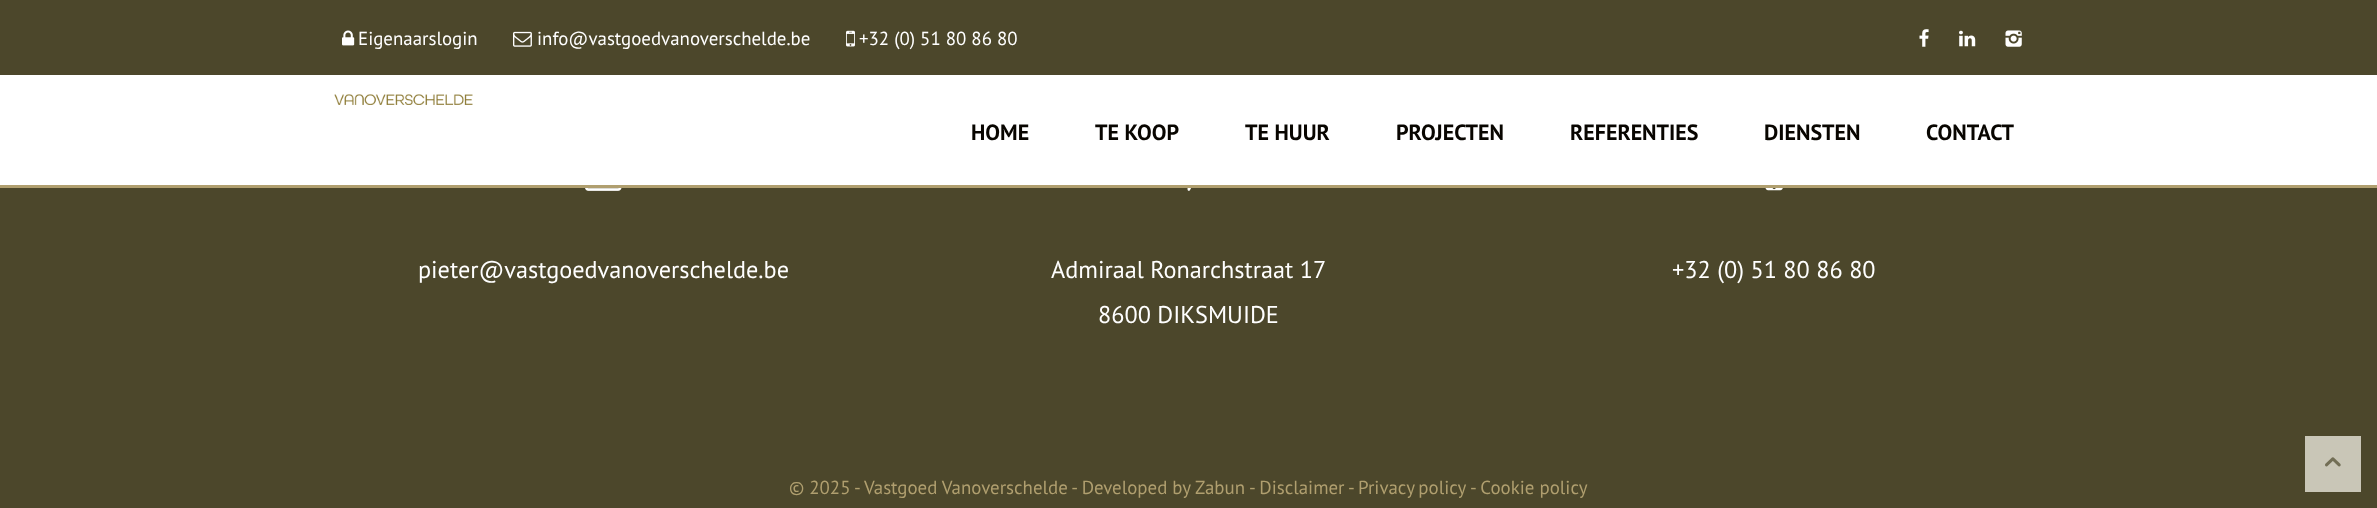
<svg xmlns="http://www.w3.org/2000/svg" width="2377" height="508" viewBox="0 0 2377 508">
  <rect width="100%" height="100%" fill="rgb(76,71,43)"/>
  <image x="342" y="30" width="13" height="16" href="pic1.png"/>
  <text x="358" y="45" font-family="PT Sans" font-size="18.9" fill="rgb(255,255,255)">Eigenaarslogin</text>
  <image x="513" y="31" width="19" height="16" href="pic2.png"/>
  <text x="537" y="45" font-family="PT Sans" font-size="18.9" fill="rgb(255,255,255)">info@vastgoedvanoverschelde.be</text>
  <image x="846" y="30" width="9" height="17" href="pic3.png"/>
  <text x="859" y="45" font-family="PT Sans" font-size="18.9" fill="rgb(255,255,255)">+32 (0) 51 80 86 80</text>
  <image x="1919" y="29" width="10" height="18" href="pic4.png"/>
  <image x="1959" y="30" width="17" height="17" href="pic5.png"/>
  <image x="2005" y="30" width="17" height="17" href="pic6.png"/>
  <rect x="0" y="75" width="2377" height="110" fill="rgb(255,255,255)"/>
  <rect x="0" y="185" width="2377" height="3" fill="rgb(176,159,111)"/>
  <image x="334" y="94" width="139" height="11" href="pic7.png"/>
  <g font-family="PT Sans" font-size="22" font-weight="bold" fill="rgb(8,5,0)">
    <text x="971" y="140">HOME</text>
    <text x="1095" y="140">TE KOOP</text>
    <text x="1245" y="140">TE HUUR</text>
    <text x="1396" y="140">PROJECTEN</text>
    <text x="1570" y="140">REFERENTIES</text>
    <text x="1764" y="140">DIENSTEN</text>
    <text x="1926" y="140">CONTACT</text>
  </g>
  <image x="585" y="188" width="37" height="3" href="pic8.png"/>
  <text x="418" y="278" font-family="PT Sans" font-size="24.25" fill="rgb(255,255,255)">pieter@vastgoedvanoverschelde.be</text>
  <image x="1187" y="188" width="4" height="3" href="pic9.png"/>
  <g font-family="PT Sans" font-size="24.25" fill="rgb(255,255,255)">
    <text x="1051" y="278">Admiraal Ronarchstraat 17</text>
    <text x="1098" y="323">8600 DIKSMUIDE</text>
  </g>
  <image x="1765" y="188" width="18" height="3" href="pic10.png"/>
  <text x="1672" y="278" font-family="PT Sans" font-size="24.25" fill="rgb(255,255,255)">+32 (0) 51 80 86 80</text>
  <g font-family="PT Sans" font-size="18.9" fill="rgb(176,159,111)">
    <text x="789" y="494">© 2025 -</text>
    <text x="864" y="494">Vastgoed Vanoverschelde - Developed by Zabun</text>
    <text x="1249" y="494">- Disclaimer</text>
    <text x="1348" y="494">-</text>
    <text x="1358" y="494" word-spacing="-1">Privacy policy</text>
    <text x="1470" y="494">- Cookie policy</text>
  </g>
  <rect x="2305" y="436" width="56" height="56" fill="rgb(201,198,183)"/>
  <image x="2325" y="457" width="16" height="10" href="pic11.png"/>
</svg>
